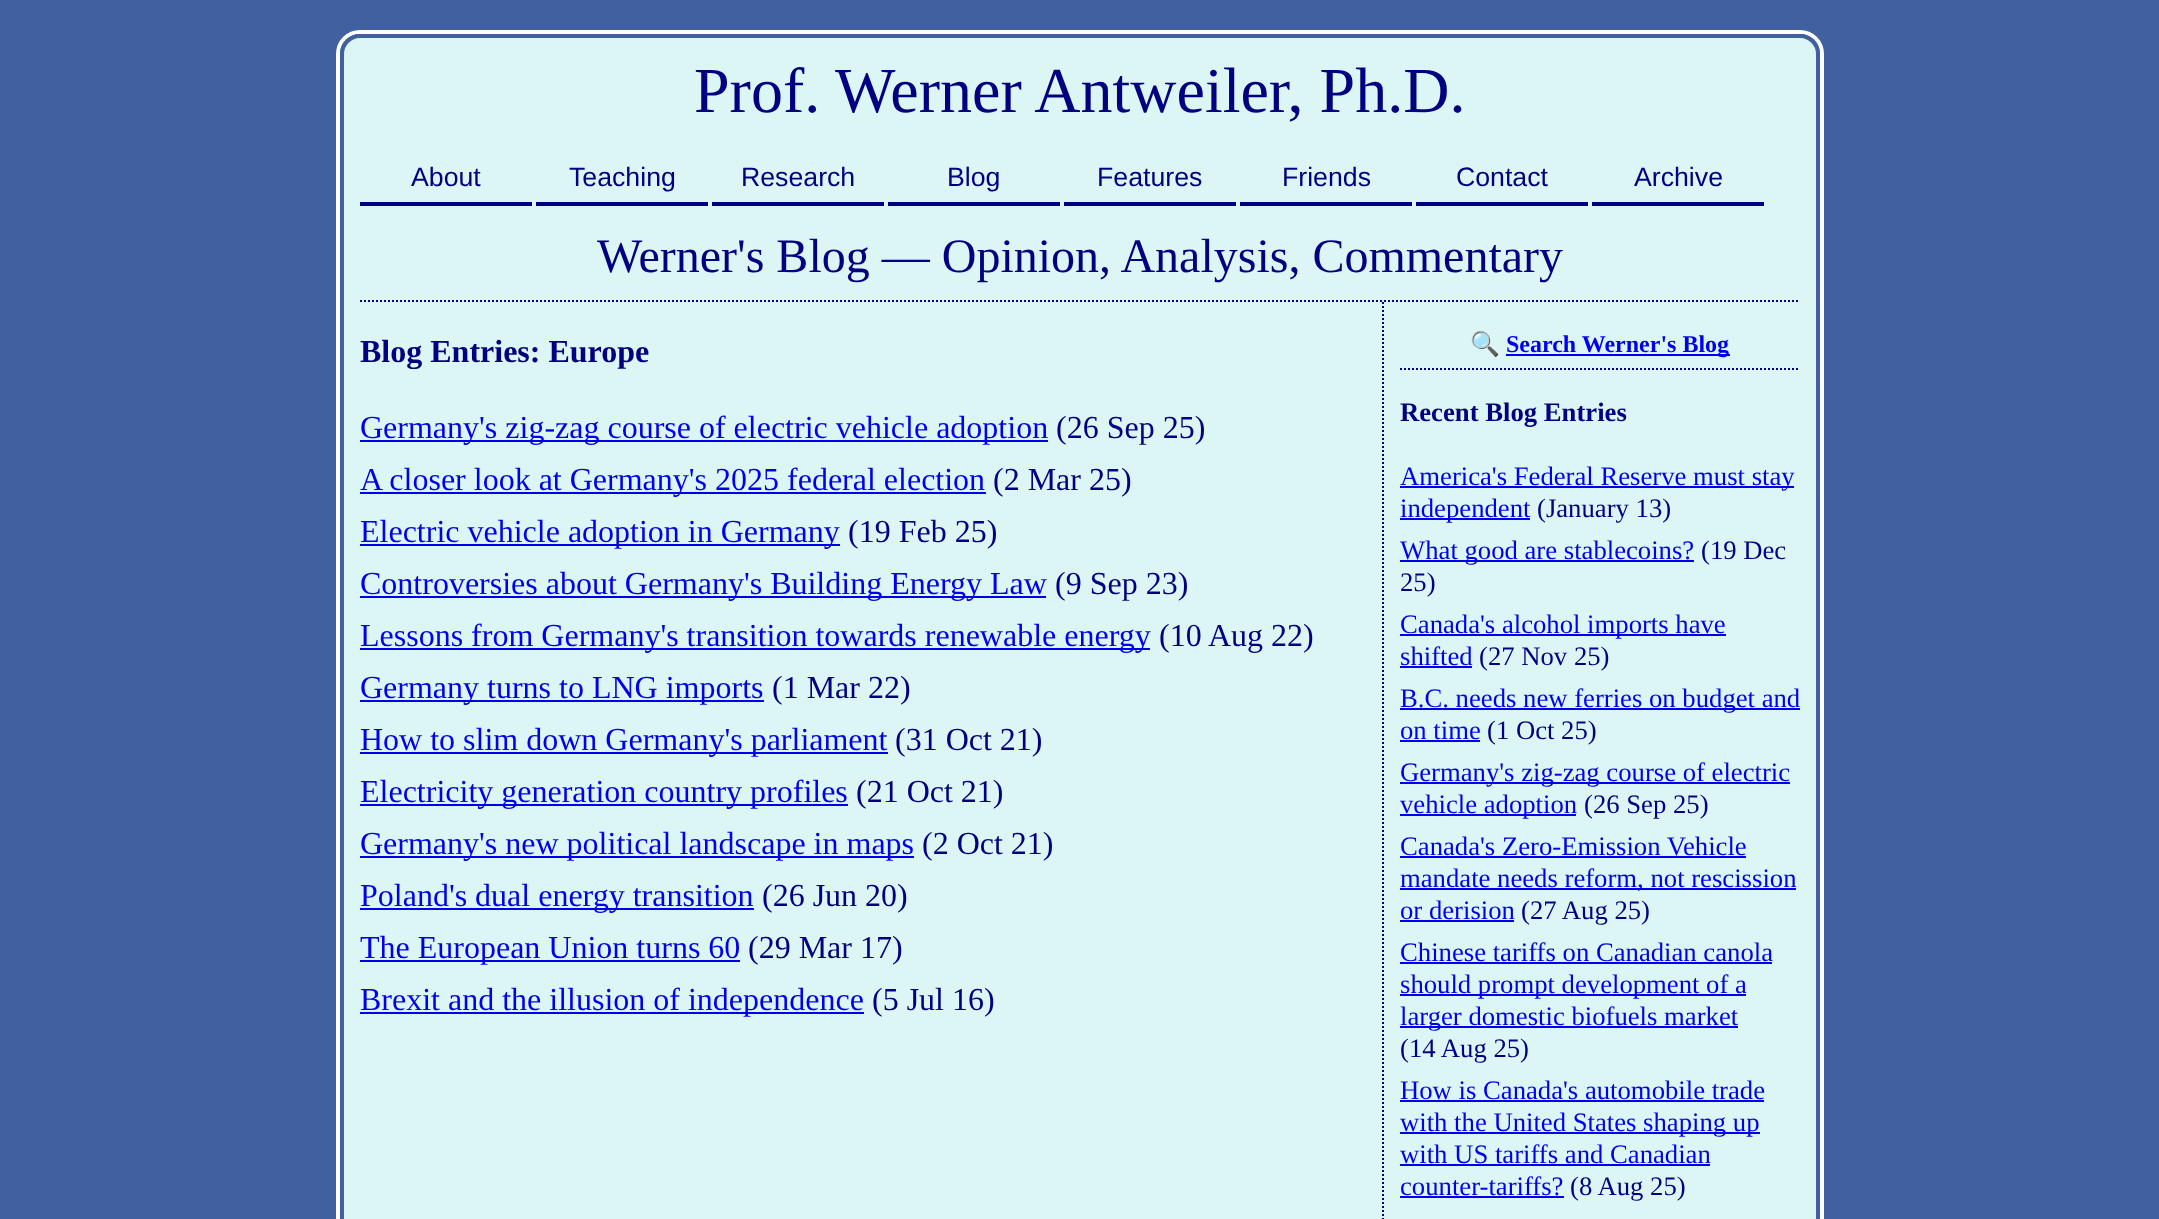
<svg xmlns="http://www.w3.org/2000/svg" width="2159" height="1219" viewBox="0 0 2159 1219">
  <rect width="100%" height="100%" fill="rgb(64,96,160)"/>
  <rect x="338" y="32" width="1484" height="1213" rx="22" fill="none" stroke="rgb(255,255,255)" stroke-width="4"/>
  <rect x="342" y="36" width="1476" height="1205" rx="18" fill="none" stroke="rgb(64,96,160)" stroke-width="4"/>
  <rect x="344" y="38" width="1472" height="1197" rx="16" fill="rgb(220,245,245)"/>
  <text x="694" y="112" font-family="Liberation Serif" font-size="64" fill="rgb(0,0,128)">Prof. Werner Antweiler, Ph.D.</text>
  <rect x="360" y="202" width="172" height="4" fill="rgb(0,0,128)"/>
  <text x="411" y="186" font-family="Liberation Sans" font-size="26.7" fill="rgb(0,0,128)">About</text>
  <rect x="536" y="202" width="172" height="4" fill="rgb(0,0,128)"/>
  <text x="569" y="186" font-family="Liberation Sans" font-size="26.7" fill="rgb(0,0,128)">Teaching</text>
  <rect x="712" y="202" width="172" height="4" fill="rgb(0,0,128)"/>
  <text x="741" y="186" font-family="Liberation Sans" font-size="26.7" fill="rgb(0,0,128)">Research</text>
  <rect x="888" y="202" width="172" height="4" fill="rgb(0,0,128)"/>
  <text x="947" y="186" font-family="Liberation Sans" font-size="26.7" fill="rgb(0,0,128)">Blog</text>
  <rect x="1064" y="202" width="172" height="4" fill="rgb(0,0,128)"/>
  <text x="1097" y="186" font-family="Liberation Sans" font-size="26.7" fill="rgb(0,0,128)">Features</text>
  <rect x="1240" y="202" width="172" height="4" fill="rgb(0,0,128)"/>
  <text x="1282" y="186" font-family="Liberation Sans" font-size="26.7" fill="rgb(0,0,128)">Friends</text>
  <rect x="1416" y="202" width="172" height="4" fill="rgb(0,0,128)"/>
  <text x="1456" y="186" font-family="Liberation Sans" font-size="26.7" fill="rgb(0,0,128)">Contact</text>
  <rect x="1592" y="202" width="172" height="4" fill="rgb(0,0,128)"/>
  <text x="1634" y="186" font-family="Liberation Sans" font-size="26.7" fill="rgb(0,0,128)">Archive</text>
  <path d="M360 301H1800" fill="none" stroke="rgb(0,0,128)" stroke-width="2" stroke-dasharray="2 2"/>
  <text x="597" y="272" font-family="Liberation Serif" font-size="48" fill="rgb(0,0,128)">Werner's Blog — Opinion, Analysis, Commentary</text>
  <text x="360" y="362" font-family="Liberation Serif" font-size="32" font-weight="bold" fill="rgb(0,0,128)">Blog Entries: Europe</text>
  <rect x="360" y="440" width="688" height="2" fill="rgb(0,0,238)"/>
  <text x="360" y="438" font-family="Liberation Serif" font-size="32" fill="rgb(0,0,238)">Germany's zig-zag course of electric vehicle adoption</text>
  <text x="1056" y="438" font-family="Liberation Serif" font-size="32" fill="rgb(0,0,128)">(26 Sep 25)</text>
  <rect x="360" y="492" width="626" height="2" fill="rgb(0,0,238)"/>
  <text x="360" y="490" font-family="Liberation Serif" font-size="32" fill="rgb(0,0,238)">A closer look at Germany's 2025 federal election</text>
  <text x="993" y="490" font-family="Liberation Serif" font-size="32" fill="rgb(0,0,128)">(2 Mar 25)</text>
  <rect x="360" y="544" width="480" height="2" fill="rgb(0,0,238)"/>
  <text x="360" y="542" font-family="Liberation Serif" font-size="32" fill="rgb(0,0,238)">Electric vehicle adoption in Germany</text>
  <text x="848" y="542" font-family="Liberation Serif" font-size="32" fill="rgb(0,0,128)">(19 Feb 25)</text>
  <rect x="360" y="596" width="686" height="2" fill="rgb(0,0,238)"/>
  <text x="360" y="594" font-family="Liberation Serif" font-size="32" fill="rgb(0,0,238)">Controversies about Germany's Building Energy Law</text>
  <text x="1055" y="594" font-family="Liberation Serif" font-size="32" fill="rgb(0,0,128)">(9 Sep 23)</text>
  <rect x="360" y="648" width="790" height="2" fill="rgb(0,0,238)"/>
  <text x="360" y="646" font-family="Liberation Serif" font-size="32" fill="rgb(0,0,238)">Lessons from Germany's transition towards renewable energy</text>
  <text x="1159" y="646" font-family="Liberation Serif" font-size="32" fill="rgb(0,0,128)">(10 Aug 22)</text>
  <rect x="360" y="700" width="404" height="2" fill="rgb(0,0,238)"/>
  <text x="360" y="698" font-family="Liberation Serif" font-size="32" fill="rgb(0,0,238)">Germany turns to LNG imports</text>
  <text x="772" y="698" font-family="Liberation Serif" font-size="32" fill="rgb(0,0,128)">(1 Mar 22)</text>
  <rect x="360" y="752" width="528" height="2" fill="rgb(0,0,238)"/>
  <text x="360" y="750" font-family="Liberation Serif" font-size="32" fill="rgb(0,0,238)">How to slim down Germany's parliament</text>
  <text x="895" y="750" font-family="Liberation Serif" font-size="32" fill="rgb(0,0,128)">(31 Oct 21)</text>
  <rect x="360" y="804" width="488" height="2" fill="rgb(0,0,238)"/>
  <text x="360" y="802" font-family="Liberation Serif" font-size="32" fill="rgb(0,0,238)">Electricity generation country profiles</text>
  <text x="856" y="802" font-family="Liberation Serif" font-size="32" fill="rgb(0,0,128)">(21 Oct 21)</text>
  <rect x="360" y="856" width="554" height="2" fill="rgb(0,0,238)"/>
  <text x="360" y="854" font-family="Liberation Serif" font-size="32" fill="rgb(0,0,238)">Germany's new political landscape in maps</text>
  <text x="922" y="854" font-family="Liberation Serif" font-size="32" fill="rgb(0,0,128)">(2 Oct 21)</text>
  <rect x="360" y="908" width="394" height="2" fill="rgb(0,0,238)"/>
  <text x="360" y="906" font-family="Liberation Serif" font-size="32" fill="rgb(0,0,238)">Poland's dual energy transition</text>
  <text x="762" y="906" font-family="Liberation Serif" font-size="32" fill="rgb(0,0,128)">(26 Jun 20)</text>
  <rect x="360" y="960" width="380" height="2" fill="rgb(0,0,238)"/>
  <text x="360" y="958" font-family="Liberation Serif" font-size="32" fill="rgb(0,0,238)">The European Union turns 60</text>
  <text x="748" y="958" font-family="Liberation Serif" font-size="32" fill="rgb(0,0,128)">(29 Mar 17)</text>
  <rect x="360" y="1012" width="504" height="2" fill="rgb(0,0,238)"/>
  <text x="360" y="1010" font-family="Liberation Serif" font-size="32" fill="rgb(0,0,238)">Brexit and the illusion of independence</text>
  <text x="872" y="1010" font-family="Liberation Serif" font-size="32" fill="rgb(0,0,128)">(5 Jul 16)</text>
  <path d="M1383 302V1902" fill="none" stroke="rgb(0,0,128)" stroke-width="2" stroke-dasharray="2 2"/>
  <path d="M1400 369H1800" fill="none" stroke="rgb(0,0,128)" stroke-width="2" stroke-dasharray="2 2"/>
  <text x="1470" y="352" font-family="Noto Color Emoji" font-size="24" font-weight="bold" fill="rgb(0,0,128)">🔍</text>
  <rect x="1506" y="354" width="224" height="2" fill="rgb(0,0,238)"/>
  <text x="1506" y="352" font-family="Liberation Serif" font-size="24" font-weight="bold" fill="rgb(0,0,238)">Search Werner's Blog</text>
  <text x="1400" y="421" font-family="Liberation Serif" font-size="26.7" font-weight="bold" fill="rgb(0,0,128)">Recent Blog Entries</text>
  <rect x="1400" y="486" width="394" height="2" fill="rgb(0,0,238)"/>
  <text x="1400" y="485" font-family="Liberation Serif" font-size="26.7" fill="rgb(0,0,238)">America's Federal Reserve must stay</text>
  <rect x="1400" y="518" width="130" height="2" fill="rgb(0,0,238)"/>
  <text x="1400" y="517" font-family="Liberation Serif" font-size="26.7" fill="rgb(0,0,238)">independent</text>
  <text x="1537" y="517" font-family="Liberation Serif" font-size="26.7" fill="rgb(0,0,128)">(January 13)</text>
  <rect x="1400" y="560" width="294" height="2" fill="rgb(0,0,238)"/>
  <text x="1400" y="559" font-family="Liberation Serif" font-size="26.7" fill="rgb(0,0,238)">What good are stablecoins?</text>
  <g font-family="Liberation Serif" font-size="26.7" fill="rgb(0,0,128)">
    <text x="1701" y="559">(19 Dec</text>
    <text x="1400" y="591">25)</text>
  </g>
  <rect x="1400" y="634" width="326" height="2" fill="rgb(0,0,238)"/>
  <g font-family="Liberation Serif" font-size="26.7" fill="rgb(0,0,238)">
    <text>
      <tspan x="1400" y="633">Canada's alcohol imports have</tspan>
      <tspan x="1400" y="665">shifted</tspan>
    </text>
  </g>
  <rect x="1400" y="666" width="72" height="2" fill="rgb(0,0,238)"/>
  <text x="1479" y="665" font-family="Liberation Serif" font-size="26.7" fill="rgb(0,0,128)">(27 Nov 25)</text>
  <rect x="1400" y="708" width="400" height="2" fill="rgb(0,0,238)"/>
  <g font-family="Liberation Serif" font-size="26.7" fill="rgb(0,0,238)">
    <text>
      <tspan x="1400" y="707">B.C. needs new ferries on budget and</tspan>
      <tspan x="1400" y="739">on time</tspan>
    </text>
  </g>
  <rect x="1400" y="740" width="80" height="2" fill="rgb(0,0,238)"/>
  <text x="1487" y="739" font-family="Liberation Serif" font-size="26.7" fill="rgb(0,0,128)">(1 Oct 25)</text>
  <rect x="1400" y="782" width="390" height="2" fill="rgb(0,0,238)"/>
  <text x="1400" y="781" font-family="Liberation Serif" font-size="26.7" fill="rgb(0,0,238)">Germany's zig-zag course of electric</text>
  <rect x="1400" y="814" width="176" height="2" fill="rgb(0,0,238)"/>
  <text x="1400" y="813" font-family="Liberation Serif" font-size="26.7" fill="rgb(0,0,238)">vehicle adoption</text>
  <text x="1584" y="813" font-family="Liberation Serif" font-size="26.7" fill="rgb(0,0,128)">(26 Sep 25)</text>
  <text x="1400" y="855" font-family="Liberation Serif" font-size="26.7" fill="rgb(0,0,238)">Canada's Zero-Emission Vehicle</text>
  <rect x="1400" y="856" width="346" height="2" fill="rgb(0,0,238)"/>
  <rect x="1400" y="888" width="396" height="2" fill="rgb(0,0,238)"/>
  <g font-family="Liberation Serif" font-size="26.7" fill="rgb(0,0,238)">
    <text>
      <tspan x="1400" y="887">mandate needs reform, not rescission</tspan>
      <tspan x="1400" y="919">or derision</tspan>
    </text>
  </g>
  <rect x="1400" y="920" width="114" height="2" fill="rgb(0,0,238)"/>
  <text x="1521" y="919" font-family="Liberation Serif" font-size="26.7" fill="rgb(0,0,128)">(27 Aug 25)</text>
  <text x="1400" y="961" font-family="Liberation Serif" font-size="26.7" fill="rgb(0,0,238)">Chinese tariffs on Canadian canola</text>
  <rect x="1400" y="962" width="372" height="2" fill="rgb(0,0,238)"/>
  <rect x="1400" y="994" width="346" height="2" fill="rgb(0,0,238)"/>
  <text x="1400" y="993" font-family="Liberation Serif" font-size="26.7" fill="rgb(0,0,238)">should prompt development of a</text>
  <rect x="1400" y="1026" width="338" height="2" fill="rgb(0,0,238)"/>
  <text x="1400" y="1025" font-family="Liberation Serif" font-size="26.7" fill="rgb(0,0,238)">larger domestic biofuels market</text>
  <text x="1400" y="1057" font-family="Liberation Serif" font-size="26.7" fill="rgb(0,0,128)">(14 Aug 25)</text>
  <text x="1400" y="1099" font-family="Liberation Serif" font-size="26.7" fill="rgb(0,0,238)">How is Canada's automobile trade</text>
  <rect x="1400" y="1100" width="364" height="2" fill="rgb(0,0,238)"/>
  <rect x="1400" y="1132" width="360" height="2" fill="rgb(0,0,238)"/>
  <g font-family="Liberation Serif" font-size="26.7" fill="rgb(0,0,238)">
    <text>
      <tspan x="1400" y="1131">with the United States shaping up</tspan>
      <tspan x="1400" y="1163">with US tariffs and Canadian</tspan>
    </text>
  </g>
  <rect x="1400" y="1164" width="310" height="2" fill="rgb(0,0,238)"/>
  <text x="1400" y="1195" font-family="Liberation Serif" font-size="26.7" fill="rgb(0,0,238)">counter-tariffs?</text>
  <rect x="1400" y="1196" width="164" height="2" fill="rgb(0,0,238)"/>
  <text x="1570" y="1195" font-family="Liberation Serif" font-size="26.7" fill="rgb(0,0,128)">(8 Aug 25)</text>
</svg>
